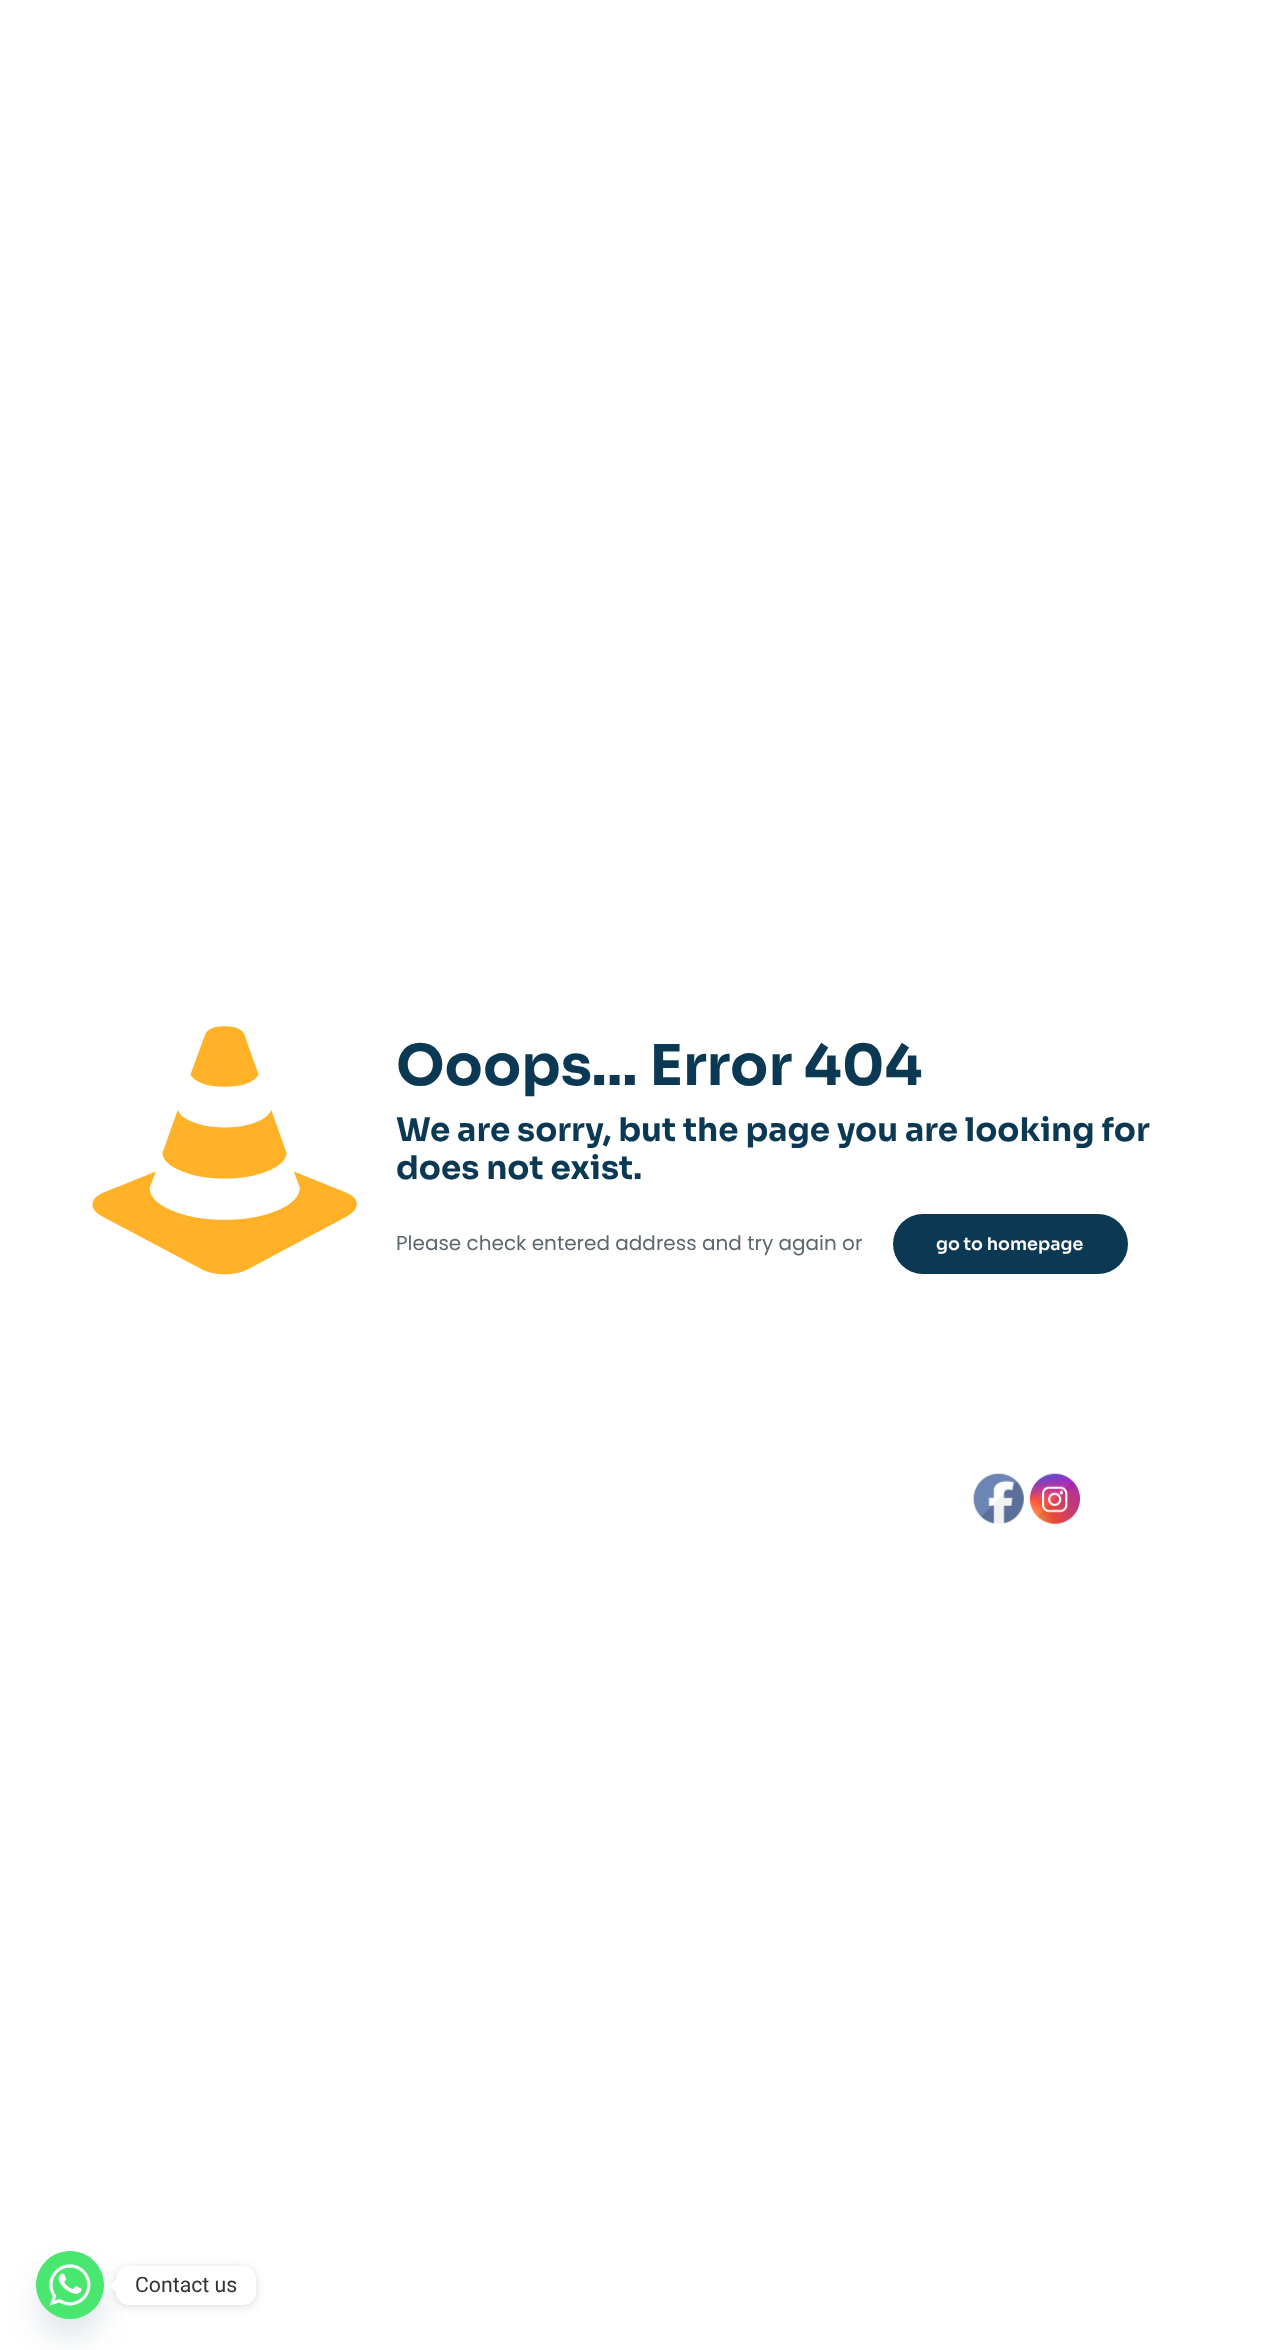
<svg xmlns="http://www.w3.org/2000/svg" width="1287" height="2350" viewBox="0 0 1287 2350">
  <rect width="100%" height="100%" fill="rgb(255,255,255)"/>
  <image x="92" y="1026" width="265" height="249" href="pic1.png"/>
  <text x="396" y="1085" font-family="Sora" font-size="56.25" font-weight="bold" fill="rgb(11,57,84)">Ooops... Error 404</text>
  <g font-family="Sora" font-size="32.5" font-weight="bold" fill="rgb(11,57,84)">
    <text>
      <tspan x="396" y="1141">We are sorry, but the page you are looking for</tspan>
      <tspan x="396" y="1179">does not exist.</tspan>
    </text>
  </g>
  <text x="396" y="1250" font-family="Poppins" font-size="20" fill="rgb(92,103,109)">Please check entered address and try again or</text>
  <rect x="893" y="1214" width="235" height="60" rx="30" fill="rgb(11,57,84)"/>
  <text x="936" y="1250" font-family="Sora" font-size="17.5" font-weight="600" fill="rgb(255,255,255)">go to homepage</text>
  <image x="973" y="1473" width="51" height="51" href="pic2.png"/>
  <image x="1030" y="1473" width="50" height="51" href="pic3.png"/>
  <rect x="36" y="2271" width="68" height="68" rx="34" fill="rgba(73,104,126,0.16)" filter="blur(15px)"/>
  <circle cx="70" cy="2285" r="34" fill="rgb(73,230,112)"/>
  <image x="36" y="2251" width="68" height="68" href="pic4.png"/>
  <rect x="116" y="2268" width="140" height="38" rx="13" fill="rgba(0,0,0,0.15)" filter="blur(5px)"/>
  <rect x="116" y="2266" width="140" height="39" rx="13" fill="rgb(255,255,255)"/>
  <path d="M116 2279.5V2292L110 2285.5Z" fill="rgb(255,255,255)"/>
  <text x="135" y="2292" font-family="Roboto" font-size="21.25" fill="rgb(51,51,51)">Contact us</text>
</svg>
